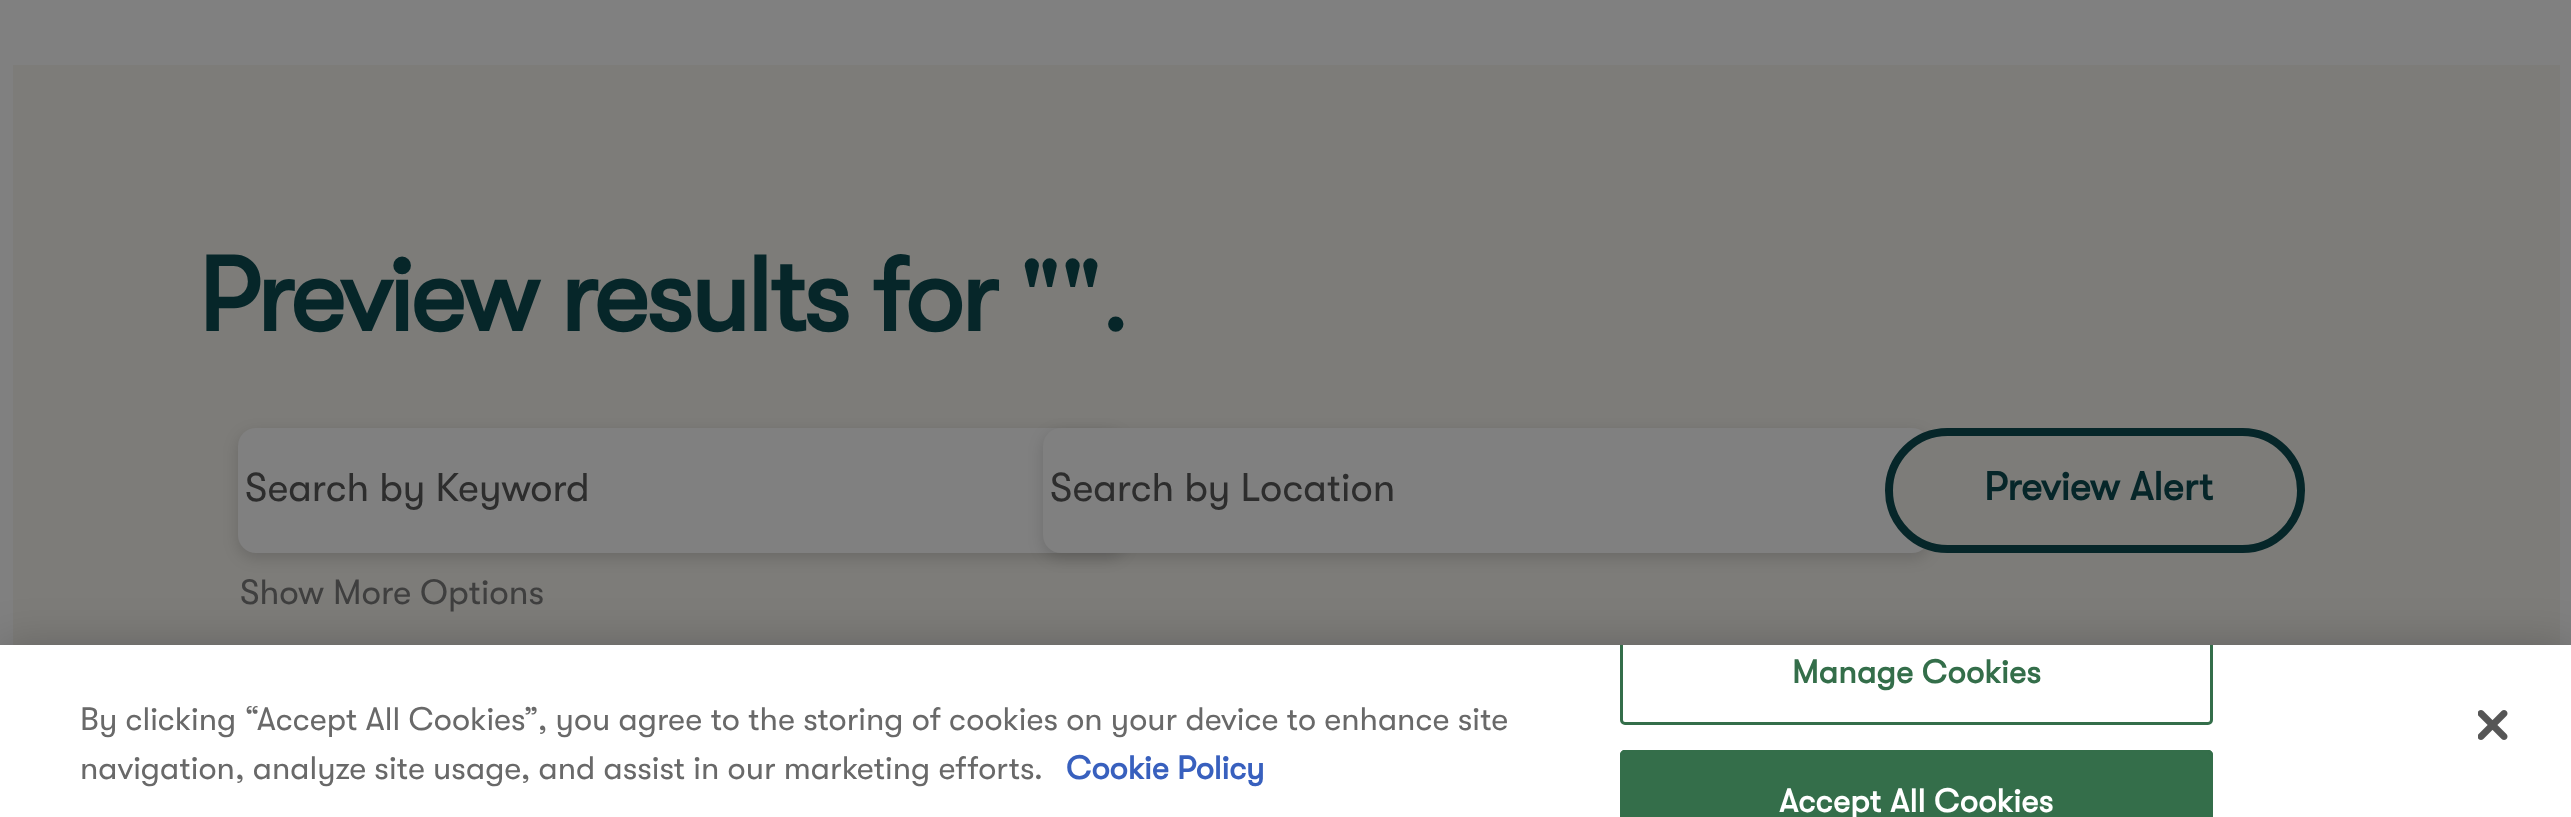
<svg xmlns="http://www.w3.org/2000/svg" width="2571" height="817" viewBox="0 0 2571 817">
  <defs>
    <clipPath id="clip1"><rect x="0" y="645" width="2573" height="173"/></clipPath>
  </defs>
  <rect width="100%" height="100%" fill="rgb(128,128,128)"/>
  <rect x="13" y="65" width="2547" height="580" fill="rgb(125,124,121)"/>
  <text x="198" y="331" font-family="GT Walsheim" font-size="105" font-weight="bold" letter-spacing="-2.6" fill="rgb(6,38,41)">Preview results for</text>
  <text x="1019" y="331" font-family="GT Walsheim" font-size="105" letter-spacing="-2.6" fill="rgb(6,38,41)">"".</text>
  <rect x="238" y="433" width="887" height="125" rx="18" fill="rgba(0,0,0,0.15)" filter="blur(7.5px)"/>
  <rect x="238" y="428" width="887" height="125" rx="18" fill="rgb(128,128,128)"/>
  <text x="245" y="501" font-family="GT Walsheim" font-size="40" fill="rgb(45,45,45)">Search by Keyword</text>
  <rect x="1043" y="433" width="887" height="125" rx="18" fill="rgba(0,0,0,0.15)" filter="blur(7.5px)"/>
  <rect x="1043" y="428" width="887" height="125" rx="18" fill="rgb(128,128,128)"/>
  <text x="1050" y="501" font-family="GT Walsheim" font-size="40" fill="rgb(45,45,45)">Search by Location</text>
  <text x="240" y="604" font-family="GT Walsheim" font-size="35" fill="rgb(63,63,63)">Show More Options</text>
  <rect x="1889" y="432" width="412" height="117" rx="58.5" fill="rgb(125,124,121)" stroke="rgb(6,38,41)" stroke-width="8"/>
  <text x="1984" y="500" font-family="GT Walsheim" font-size="40" font-weight="bold" fill="rgb(6,38,41)">Preview Alert</text>
  <rect x="0" y="645" width="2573" height="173" fill="rgba(0,0,0,0.2)" filter="blur(22.5px)"/>
  <rect x="0" y="645" width="2571" height="172" fill="rgb(255,255,255)"/>
  <g font-family="GT Walsheim" font-size="32.5" fill="rgb(105,105,105)">
    <text>
      <tspan x="80" y="730">By clicking “Accept All Cookies”, you agree to the storing of cookies on your device to enhance site</tspan>
      <tspan x="80" y="779">navigation, analyze site usage, and assist in our marketing efforts.</tspan>
    </text>
  </g>
  <text x="1066" y="779" font-family="GT Walsheim" font-size="32.5" font-weight="bold" fill="rgb(56,96,190)">Cookie Policy</text>
  <g clip-path="url(#clip1)">
    <rect x="1621.5" y="621.5" width="590" height="102" rx="3.5" fill="none" stroke="rgb(52,110,74)" stroke-width="3"/>
  </g>
  <text x="1792" y="683" font-family="GT Walsheim" font-size="32.5" font-weight="bold" letter-spacing="0.3" fill="rgb(52,110,74)">Manage Cookies</text>
  <path d="M1625 750H2208C2211 750 2213 752 2213 755V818H1620V755C1620 752 1622 750 1625 750Z" fill="rgb(52,110,74)"/>
  <rect x="1621.5" y="751.5" width="590" height="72" rx="3.5" fill="none" stroke="rgb(52,110,74)" stroke-width="3"/>
  <text x="1779" y="812" font-family="GT Walsheim" font-size="32.5" font-weight="bold" letter-spacing="0.3" fill="rgb(255,255,255)">Accept All Cookies</text>
  <image x="2478" y="710" width="30" height="30" href="pic1.png"/>
</svg>
